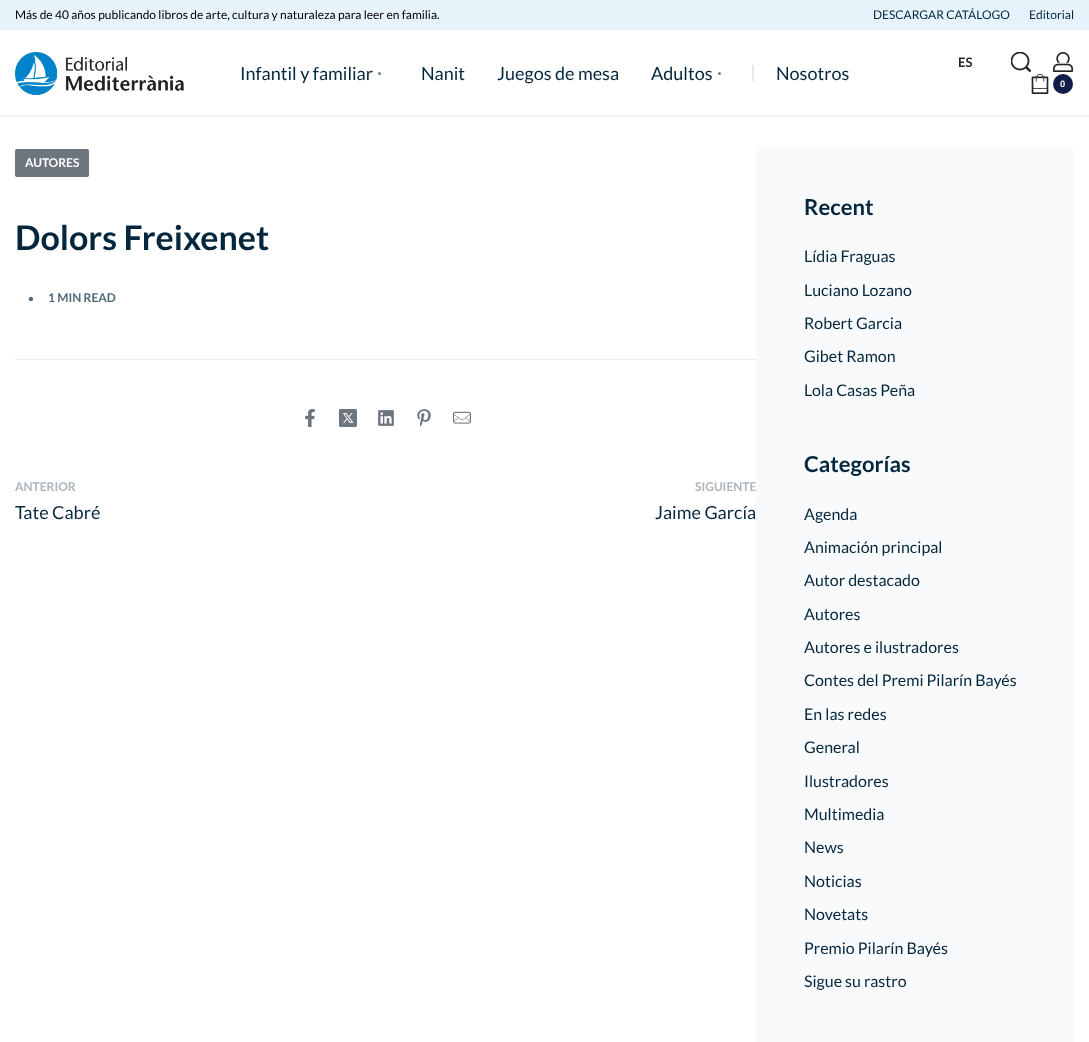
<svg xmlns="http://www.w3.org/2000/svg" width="1089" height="1042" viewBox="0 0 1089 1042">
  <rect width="100%" height="100%" fill="rgb(255,255,255)"/>
  <rect x="0" y="0" width="1089" height="30" fill="rgb(230,243,250)"/>
  <text x="15" y="19" font-family="Lato" font-size="12" fill="rgb(0,0,0)">Más de 40 años publicando libros de arte, cultura y naturaleza para leer en familia.</text>
  <g font-family="Lato" font-size="12" fill="rgb(5,39,61)">
    <text x="873" y="19">DESCARGAR CATÁLOGO</text>
    <text x="1029" y="19">Editorial</text>
  </g>
  <rect x="0" y="115" width="1089" height="2" fill="rgb(240,242,243)"/>
  <image x="15" y="52" width="169" height="43" href="pic1.png"/>
  <text x="240" y="80" font-family="Lato" font-size="18" fill="rgb(5,39,61)">Infantil y familiar</text>
  <circle cx="379.5" cy="73.5" r="1.5" fill="rgb(105,125,139)"/>
  <g font-family="Lato" font-size="18" fill="rgb(5,39,61)">
    <text x="421" y="80">Nanit</text>
    <text x="497" y="80">Juegos de mesa</text>
    <text x="651" y="80">Adultos</text>
  </g>
  <circle cx="719.5" cy="73.5" r="1.5" fill="rgb(105,125,139)"/>
  <rect x="752" y="65" width="2" height="16" fill="rgb(233,233,234)"/>
  <text x="776" y="80" font-family="Lato" font-size="18" fill="rgb(5,39,61)">Nosotros</text>
  <text x="958" y="67" font-family="Lato" font-size="13" font-weight="bold" fill="rgb(34,38,42)">ES</text>
  <image x="1011" y="52" width="20" height="20" href="pic2.png"/>
  <image x="1053" y="52" width="20" height="20" href="pic3.png"/>
  <image x="1031" y="74" width="18" height="20" href="pic4.png"/>
  <circle cx="1063" cy="84" r="10" fill="rgb(17,30,73)"/>
  <text x="1060" y="87" font-family="Roboto" font-size="9" font-weight="600" fill="rgb(255,255,255)">0</text>
  <rect x="15" y="149" width="74" height="28" rx="2" fill="rgb(109,117,126)"/>
  <text x="25" y="167" font-family="Lato" font-size="12" font-weight="bold" fill="rgb(255,255,255)">AUTORES</text>
  <text x="15" y="250" font-family="Lato" font-size="34" font-weight="bold" fill="rgb(5,39,61)">Dolors Freixenet</text>
  <text x="28" y="302" font-family="Lato" font-size="10" font-weight="bold" fill="rgb(80,104,119)">•</text>
  <text x="48" y="302" font-family="Lato" font-size="12" font-weight="bold" fill="rgb(80,104,119)">1 MIN READ</text>
  <rect x="15" y="359" width="741" height="1" fill="rgb(234,237,240)"/>
  <image x="305" y="409" width="10" height="18" href="pic5.png"/>
  <image x="339" y="409" width="18" height="18" href="pic6.png"/>
  <image x="378" y="410" width="16" height="16" href="pic7.png"/>
  <image x="417" y="409" width="14" height="18" href="pic8.png"/>
  <image x="453" y="411" width="18" height="13" href="pic9.png"/>
  <text x="15" y="491" font-family="Lato" font-size="12" font-weight="bold" fill="rgb(173,181,189)">ANTERIOR</text>
  <text x="15" y="519" font-family="Lato" font-size="18" fill="rgb(5,39,61)">Tate Cabré</text>
  <text x="695" y="491" font-family="Lato" font-size="12" font-weight="bold" fill="rgb(173,181,189)">SIGUIENTE</text>
  <text x="655" y="519" font-family="Lato" font-size="18" fill="rgb(5,39,61)">Jaime García</text>
  <rect x="756" y="147" width="318" height="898" rx="3" fill="rgb(249,250,251)"/>
  <text x="804" y="215" font-family="Lato" font-size="22" font-weight="bold" fill="rgb(5,39,61)">Recent</text>
  <g font-family="Lato" font-size="16" fill="rgb(5,39,61)">
    <text x="804" y="262">Lídia Fraguas</text>
    <text x="804" y="296">Luciano Lozano</text>
    <text x="804" y="329">Robert Garcia</text>
    <text x="804" y="362">Gibet Ramon</text>
    <text x="804" y="396">Lola Casas Peña</text>
  </g>
  <text x="804" y="472" font-family="Lato" font-size="22" font-weight="bold" fill="rgb(5,39,61)">Categorías</text>
  <g font-family="Lato" font-size="16" fill="rgb(5,39,61)">
    <text x="804" y="520">Agenda</text>
    <text x="804" y="553">Animación principal</text>
    <text x="804" y="586">Autor destacado</text>
    <text x="804" y="620">Autores</text>
    <text x="804" y="653">Autores e ilustradores</text>
    <text x="804" y="686">Contes del Premi Pilarín Bayés</text>
    <text x="804" y="720">En las redes</text>
    <text x="804" y="753">General</text>
    <text x="804" y="787">Ilustradores</text>
    <text x="804" y="820">Multimedia</text>
    <text x="804" y="853">News</text>
    <text x="804" y="887">Noticias</text>
    <text x="804" y="920">Novetats</text>
    <text x="804" y="954">Premio Pilarín Bayés</text>
    <text x="804" y="987">Sigue su rastro</text>
  </g>
</svg>
